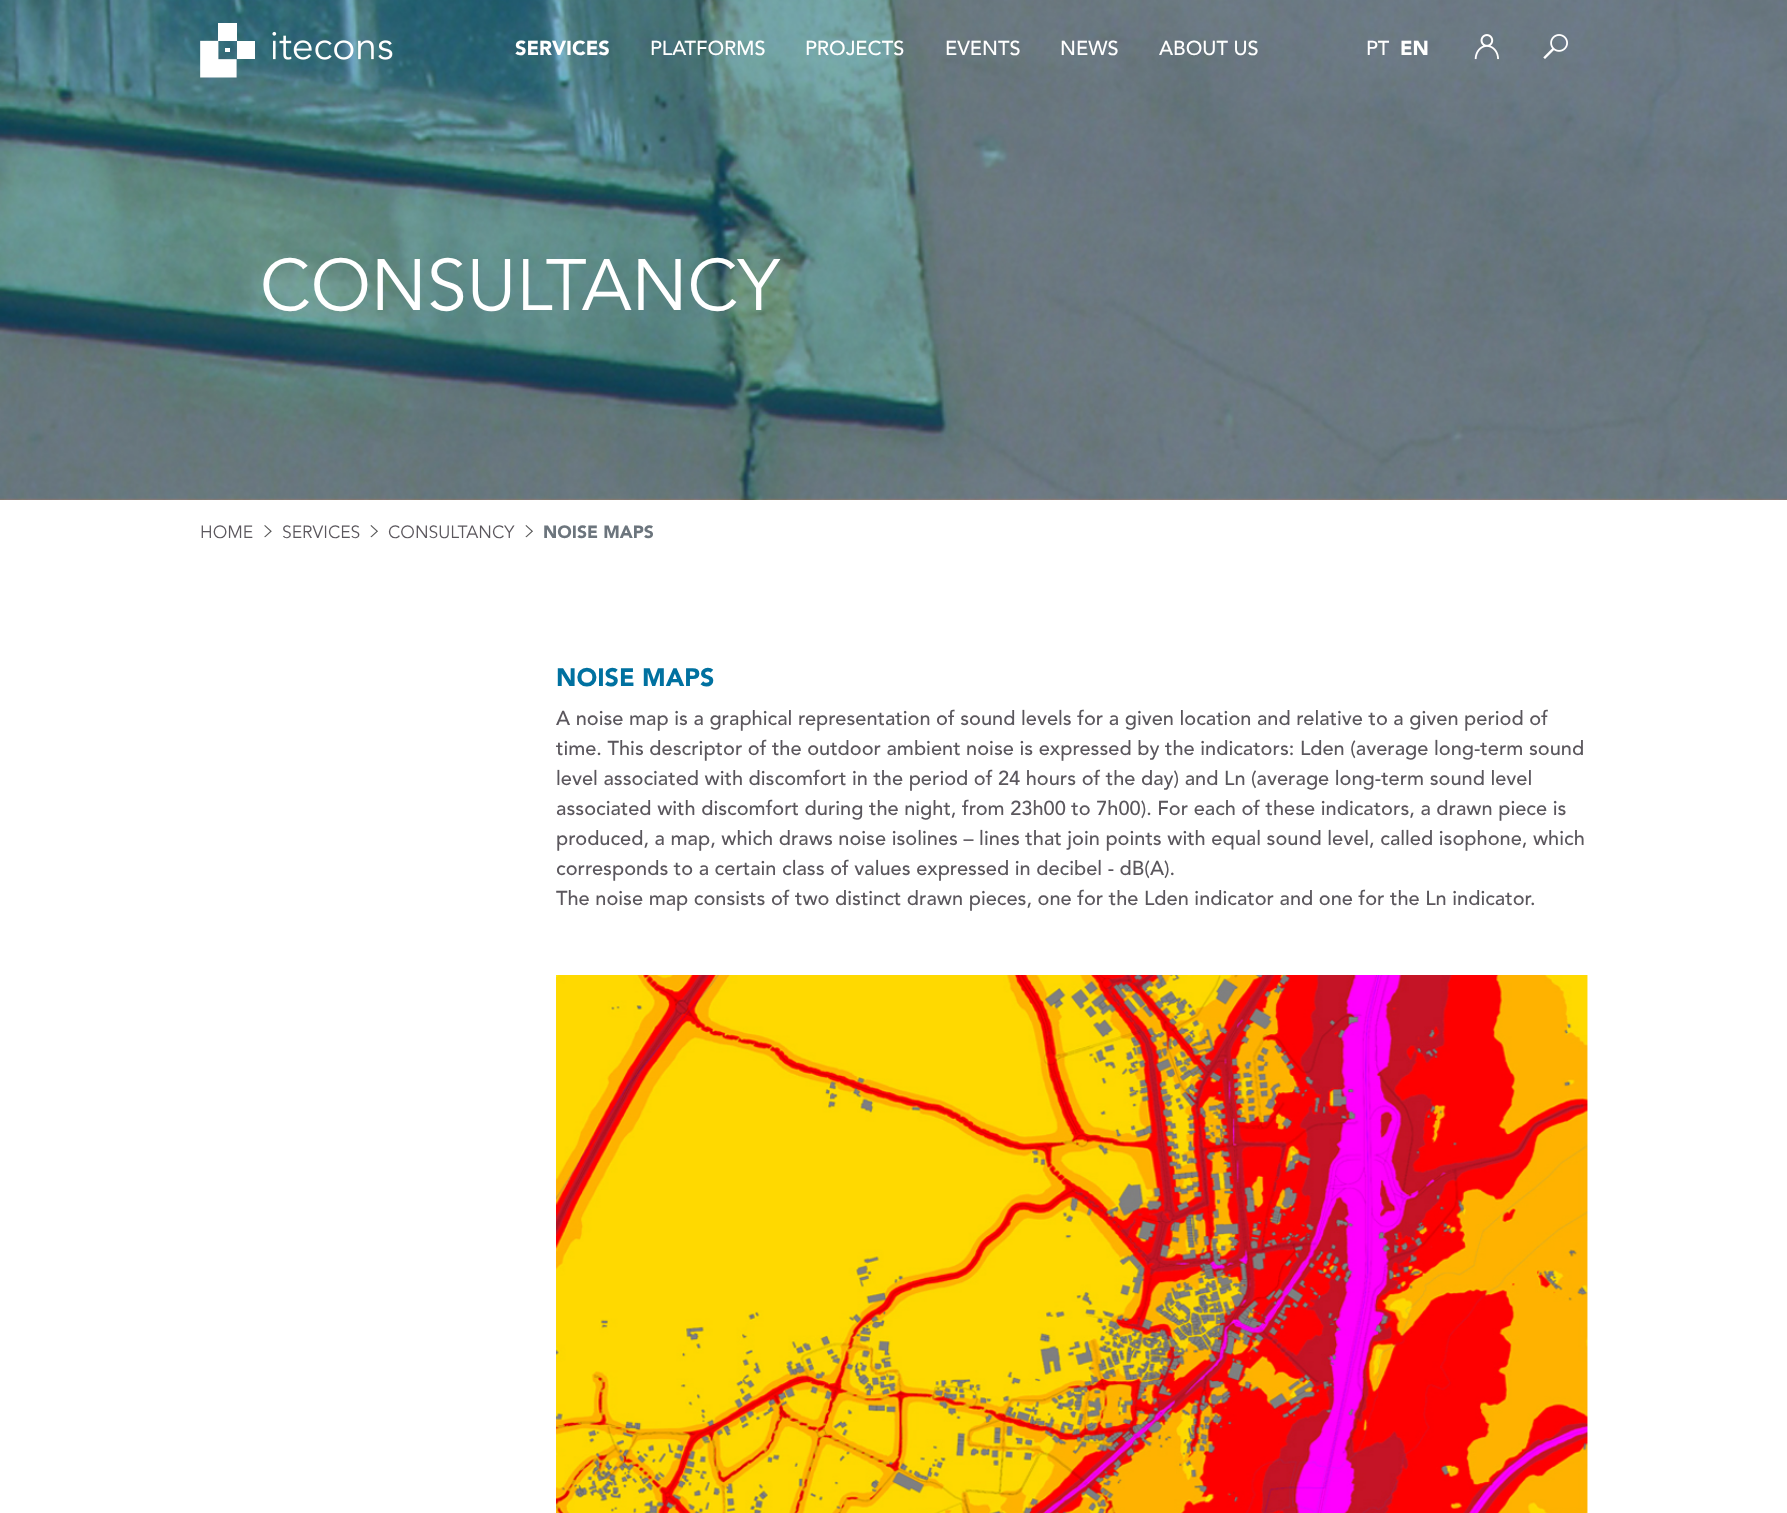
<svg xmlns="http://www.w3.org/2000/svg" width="1787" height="1513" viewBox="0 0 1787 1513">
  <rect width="100%" height="100%" fill="rgb(255,255,255)"/>
  <image x="0" y="0" width="1787" height="500" href="pic4.png"/>
  <image x="200" y="23" width="193" height="55" href="pic1.png"/>
  <text x="515" y="55" font-family="Avenir" font-size="20" font-weight="900" fill="rgb(255,255,255)">SERVICES</text>
  <g font-family="Avenir" font-size="20" font-weight="500" fill="rgb(255,255,255)">
    <text x="650" y="55">PLATFORMS</text>
    <text x="805" y="55">PROJECTS</text>
    <text x="945" y="55">EVENTS</text>
    <text x="1060" y="55">NEWS</text>
    <text x="1159" y="55">ABOUT US</text>
    <text x="1366" y="55">PT</text>
  </g>
  <text x="1400" y="55" font-family="Avenir" font-size="20" font-weight="900" fill="rgb(255,255,255)">EN</text>
  <image x="1474" y="34" width="25" height="26" href="pic2.png"/>
  <image x="1543" y="34" width="25" height="25" href="pic3.png"/>
  <text x="260" y="310" font-family="Avenir" font-size="72" fill="rgb(255,255,255)">CONSULTANCY</text>
  <text x="200" y="538" font-family="Avenir" font-size="17.5" fill="rgb(91,87,93)">HOME</text>
  <image x="264" y="525" width="8" height="13" href="pic5.png"/>
  <text x="282" y="538" font-family="Avenir" font-size="17.5" fill="rgb(91,87,93)">SERVICES</text>
  <image x="370" y="525" width="8" height="13" href="pic6.png"/>
  <text x="388" y="538" font-family="Avenir" font-size="17.5" fill="rgb(91,87,93)">CONSULTANCY</text>
  <image x="525" y="525" width="8" height="13" href="pic6.png"/>
  <text x="543" y="538" font-family="Avenir" font-size="17.5" font-weight="900" fill="rgb(108,117,125)">NOISE MAPS</text>
  <text x="556" y="686" font-family="Avenir" font-size="25" font-weight="900" fill="rgb(0,113,160)">NOISE MAPS</text>
  <g font-family="Avenir" font-size="20" font-weight="500" fill="rgb(91,87,93)">
    <text>
      <tspan x="556" y="725">A noise map is a graphical representation of sound levels for a given location and relative to a given period of</tspan>
      <tspan x="556" y="755">time. This descriptor of the outdoor ambient noise is expressed by the indicators: Lden (average long-term sound</tspan>
      <tspan x="556" y="785">level associated with discomfort in the period of 24 hours of the day) and Ln (average long-term sound level</tspan>
      <tspan x="556" y="815">associated with discomfort during the night, from 23h00 to 7h00). For each of these indicators, a drawn piece is</tspan>
      <tspan x="556" y="845">produced, a map, which draws noise isolines – lines that join points with equal sound level, called isophone, which</tspan>
      <tspan x="556" y="875">corresponds to a certain class of values expressed in decibel - dB(A).</tspan>
      <tspan x="556" y="905">The noise map consists of two distinct drawn pieces, one for the Lden indicator and one for the Ln indicator.</tspan>
    </text>
  </g>
  <image x="556" y="975" width="1032" height="538" href="pic7.png"/>
</svg>
